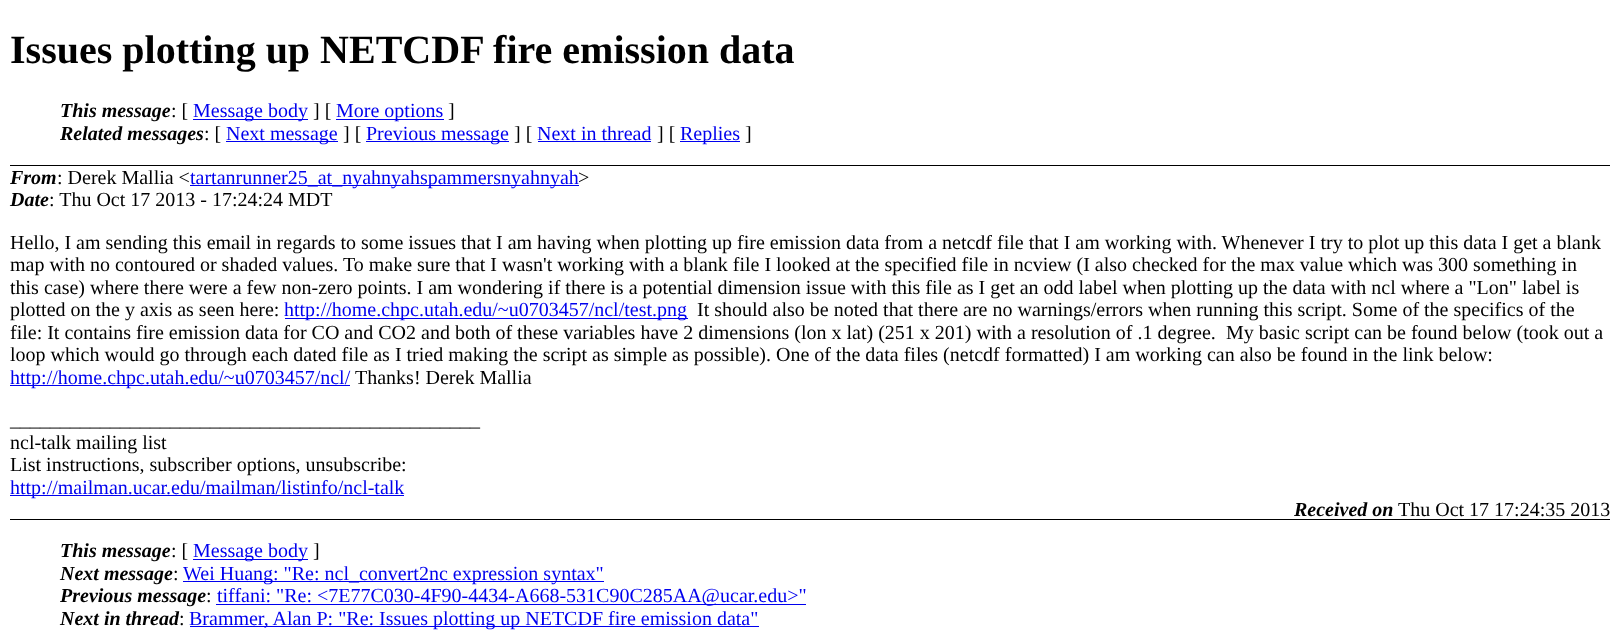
<svg xmlns="http://www.w3.org/2000/svg" width="1619" height="631" viewBox="0 0 1619 631">
  <rect width="100%" height="100%" fill="rgb(255,255,255)"/>
  <rect x="10" y="165" width="1600" height="1" fill="rgb(0,0,0)"/>
  <text x="10" y="63" font-family="Liberation Serif" font-size="40" font-weight="bold" fill="rgb(0,0,0)">Issues plotting up NETCDF fire emission data</text>
  <text x="60" y="117" font-family="Liberation Serif" font-size="20" font-weight="bold" font-style="italic" fill="rgb(0,0,0)">This message</text>
  <text x="171" y="117" font-family="Liberation Serif" font-size="20" fill="rgb(0,0,0)">: [</text>
  <rect x="193" y="119" width="115" height="1" fill="rgb(0,0,238)"/>
  <text x="193" y="117" font-family="Liberation Serif" font-size="20" fill="rgb(0,0,238)">Message body</text>
  <text x="313" y="117" font-family="Liberation Serif" font-size="20" fill="rgb(0,0,0)">] [</text>
  <rect x="336" y="119" width="108" height="1" fill="rgb(0,0,238)"/>
  <text x="336" y="117" font-family="Liberation Serif" font-size="20" fill="rgb(0,0,238)">More options</text>
  <text x="448" y="117" font-family="Liberation Serif" font-size="20" fill="rgb(0,0,0)">]</text>
  <text x="60" y="140" font-family="Liberation Serif" font-size="20" font-weight="bold" font-style="italic" fill="rgb(0,0,0)">Related messages</text>
  <text x="204" y="140" font-family="Liberation Serif" font-size="20" fill="rgb(0,0,0)">: [</text>
  <rect x="226" y="141" width="112" height="1" fill="rgb(0,0,238)"/>
  <text x="226" y="140" font-family="Liberation Serif" font-size="20" fill="rgb(0,0,238)">Next message</text>
  <text x="343" y="140" font-family="Liberation Serif" font-size="20" fill="rgb(0,0,0)">] [</text>
  <rect x="366" y="141" width="143" height="1" fill="rgb(0,0,238)"/>
  <text x="366" y="140" font-family="Liberation Serif" font-size="20" fill="rgb(0,0,238)">Previous message</text>
  <text x="514" y="140" font-family="Liberation Serif" font-size="20" fill="rgb(0,0,0)">] [</text>
  <text x="537" y="140" font-family="Liberation Serif" font-size="20" fill="rgb(0,0,238)">Next in thread</text>
  <rect x="538" y="141" width="113" height="1" fill="rgb(0,0,238)"/>
  <text x="657" y="140" font-family="Liberation Serif" font-size="20" fill="rgb(0,0,0)">] [</text>
  <rect x="680" y="141" width="60" height="1" fill="rgb(0,0,238)"/>
  <text x="680" y="140" font-family="Liberation Serif" font-size="20" fill="rgb(0,0,238)">Replies</text>
  <text x="745" y="140" font-family="Liberation Serif" font-size="20" fill="rgb(0,0,0)">]</text>
  <text x="10" y="184" font-family="Liberation Serif" font-size="20" font-weight="bold" font-style="italic" fill="rgb(0,0,0)">From</text>
  <text x="57" y="184" font-family="Liberation Serif" font-size="20" fill="rgb(0,0,0)">: Derek Mallia &lt;</text>
  <rect x="190" y="185" width="389" height="1" fill="rgb(0,0,238)"/>
  <text x="190" y="184" font-family="Liberation Serif" font-size="20" fill="rgb(0,0,238)">tartanrunner25_at_nyahnyahspammersnyahnyah</text>
  <text x="578" y="184" font-family="Liberation Serif" font-size="20" fill="rgb(0,0,0)">&gt;</text>
  <text x="10" y="206" font-family="Liberation Serif" font-size="20" font-weight="bold" font-style="italic" fill="rgb(0,0,0)">Date</text>
  <g font-family="Liberation Serif" font-size="20" fill="rgb(0,0,0)">
    <text x="49" y="206">: Thu Oct 17 2013 - 17:24:24 MDT</text>
    <text>
      <tspan x="10" y="249">Hello, I am sending this email in regards to some issues that I am having when plotting up fire emission data from a netcdf file that I am working with. Whenever I try to plot up this data I get a blank</tspan>
      <tspan x="10" y="271">map with no contoured or shaded values. To make sure that I wasn't working with a blank file I looked at the specified file in ncview (I also checked for the max value which was 300 something in</tspan>
      <tspan x="10" y="294">this case) where there were a few non-zero points. I am wondering if there is a potential dimension issue with this file as I get an odd label when plotting up the data with ncl where a "Lon" label is</tspan>
      <tspan x="10" y="316">plotted on the y axis as seen here:</tspan>
    </text>
  </g>
  <rect x="285" y="318" width="403" height="1" fill="rgb(0,0,238)"/>
  <text x="284" y="316" font-family="Liberation Serif" font-size="20" fill="rgb(0,0,238)">http://home.chpc.utah.edu/~u0703457/ncl/test.png</text>
  <g font-family="Liberation Serif" font-size="20" fill="rgb(0,0,0)">
    <text x="697" y="316">It should also be noted that there are no warnings/errors when running this script. Some of the specifics of the</text>
    <text x="10" y="339">file: It contains fire emission data for CO and CO2 and both of these variables have 2 dimensions (lon x lat) (251 x 201) with a resolution of .1 degree.</text>
    <text x="1226" y="339">My basic script can be found below (took out a</text>
    <text x="10" y="361">loop which would go through each dated file as I tried making the script as simple as possible). One of the data files (netcdf formatted) I am working can also be found in the link below:</text>
  </g>
  <rect x="10" y="385" width="340" height="1" fill="rgb(0,0,238)"/>
  <text x="10" y="384" font-family="Liberation Serif" font-size="20" fill="rgb(0,0,238)">http://home.chpc.utah.edu/~u0703457/ncl/</text>
  <g font-family="Liberation Serif" font-size="20" fill="rgb(0,0,0)">
    <text x="355" y="384">Thanks! Derek Mallia</text>
    <text>
      <tspan x="10" y="426">_______________________________________________</tspan>
      <tspan x="10" y="449">ncl-talk mailing list</tspan>
      <tspan x="10" y="471">List instructions, subscriber options, unsubscribe:</tspan>
    </text>
  </g>
  <rect x="10" y="495" width="394" height="1" fill="rgb(0,0,238)"/>
  <text x="10" y="494" font-family="Liberation Serif" font-size="20" fill="rgb(0,0,238)">http://mailman.ucar.edu/mailman/listinfo/ncl-talk</text>
  <text x="1294" y="516" font-family="Liberation Serif" font-size="20" font-weight="bold" font-style="italic" fill="rgb(0,0,0)">Received on</text>
  <text x="1398" y="516" font-family="Liberation Serif" font-size="20" fill="rgb(0,0,0)">Thu Oct 17 17:24:35 2013</text>
  <rect x="10" y="519" width="1600" height="1" fill="rgb(0,0,0)"/>
  <text x="60" y="557" font-family="Liberation Serif" font-size="20" font-weight="bold" font-style="italic" fill="rgb(0,0,0)">This message</text>
  <text x="171" y="557" font-family="Liberation Serif" font-size="20" fill="rgb(0,0,0)">: [</text>
  <rect x="193" y="559" width="115" height="1" fill="rgb(0,0,238)"/>
  <text x="193" y="557" font-family="Liberation Serif" font-size="20" fill="rgb(0,0,238)">Message body</text>
  <text x="313" y="557" font-family="Liberation Serif" font-size="20" fill="rgb(0,0,0)">]</text>
  <text x="60" y="580" font-family="Liberation Serif" font-size="20" font-weight="bold" font-style="italic" fill="rgb(0,0,0)">Next message</text>
  <text x="173" y="580" font-family="Liberation Serif" font-size="20" fill="rgb(0,0,0)">:</text>
  <rect x="183" y="581" width="421" height="1" fill="rgb(0,0,238)"/>
  <text x="183" y="580" font-family="Liberation Serif" font-size="20" fill="rgb(0,0,238)">Wei Huang: "Re: ncl_convert2nc expression syntax"</text>
  <text x="60" y="602" font-family="Liberation Serif" font-size="20" font-weight="bold" font-style="italic" fill="rgb(0,0,0)">Previous message</text>
  <text x="206" y="602" font-family="Liberation Serif" font-size="20" fill="rgb(0,0,0)">:</text>
  <rect x="216" y="604" width="590" height="1" fill="rgb(0,0,238)"/>
  <text x="217" y="602" font-family="Liberation Serif" font-size="20" fill="rgb(0,0,238)">tiffani: "Re: &lt;7E77C030-4F90-4434-A668-531C90C285AA@ucar.edu&gt;"</text>
  <text x="60" y="625" font-family="Liberation Serif" font-size="20" font-weight="bold" font-style="italic" fill="rgb(0,0,0)">Next in thread</text>
  <text x="179" y="625" font-family="Liberation Serif" font-size="20" fill="rgb(0,0,0)">:</text>
  <rect x="190" y="626" width="569" height="1" fill="rgb(0,0,238)"/>
  <text x="189" y="625" font-family="Liberation Serif" font-size="20" fill="rgb(0,0,238)">Brammer, Alan P: "Re: Issues plotting up NETCDF fire emission data"</text>
</svg>
